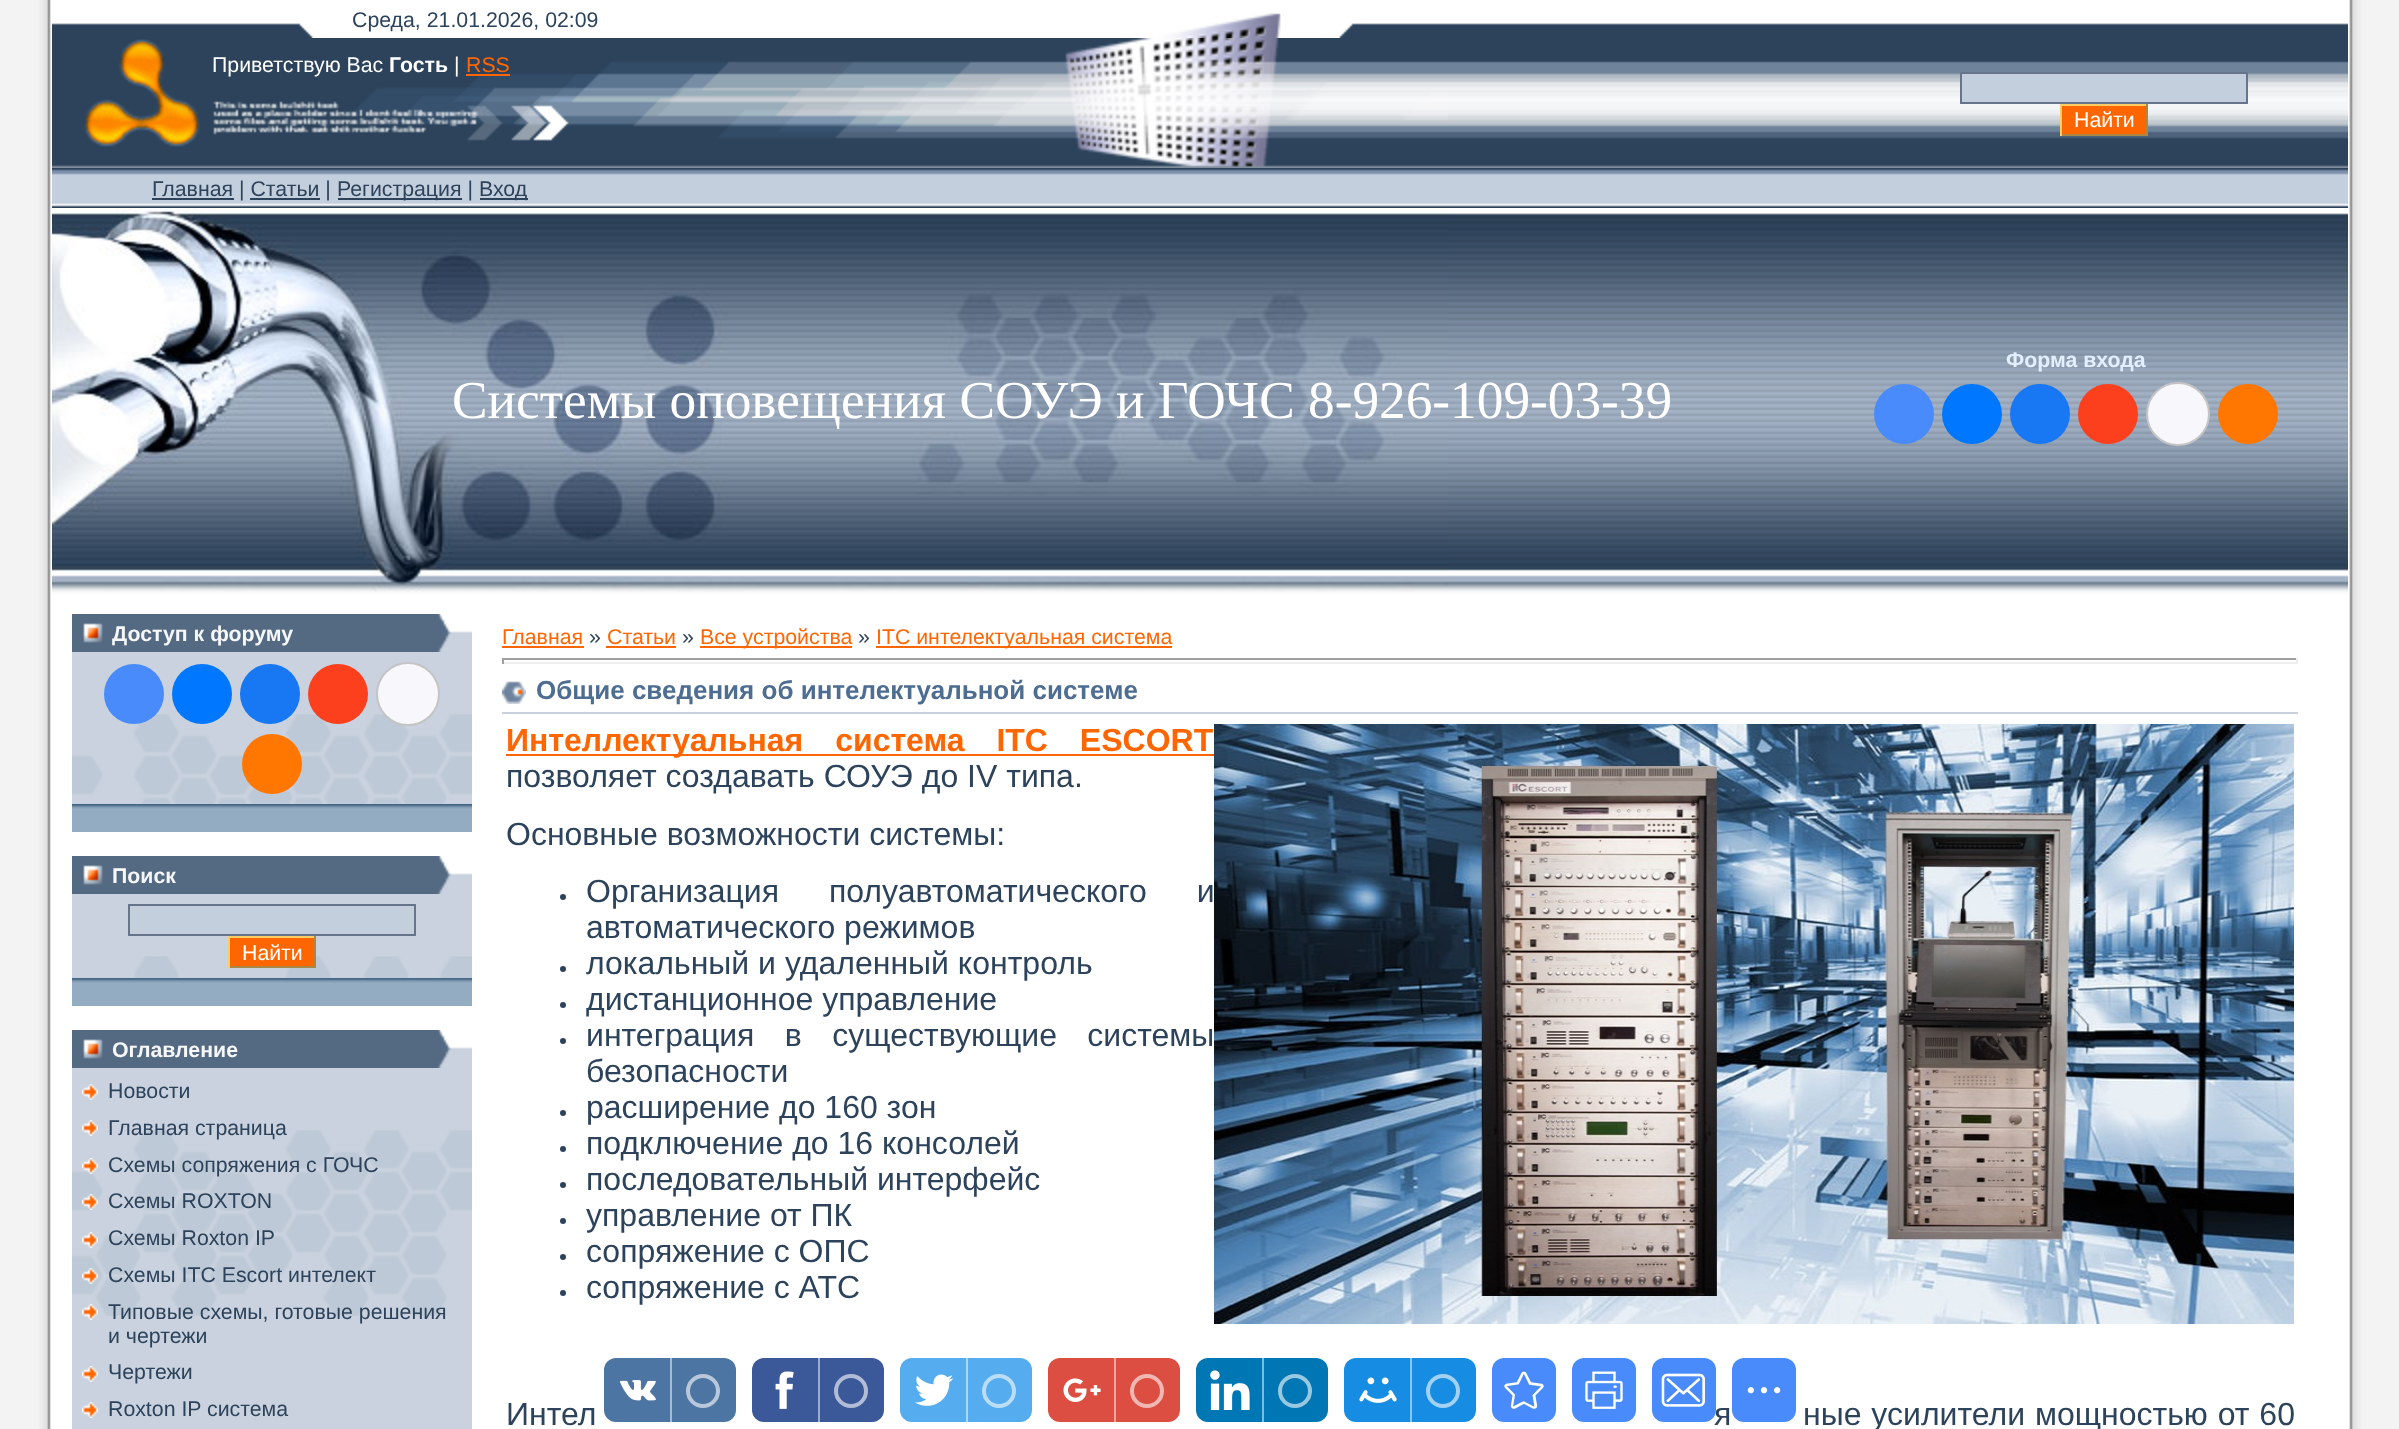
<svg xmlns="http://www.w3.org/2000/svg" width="2399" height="1429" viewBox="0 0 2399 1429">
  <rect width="100%" height="100%" fill="rgb(255,255,255)"/>
  <image x="0" y="0" width="51" height="1429" href="pic1.png"/>
  <image x="52" y="23" width="2296" height="145" href="pic2.png"/>
  <image x="299" y="13" width="1054" height="25" href="pic3.png"/>
  <text x="352" y="27" font-family="Liberation Sans" font-size="21.3" fill="rgb(45,67,91)">Среда, 21.01.2026, 02:09</text>
  <image x="52" y="38" width="1396" height="130" href="pic4.png"/>
  <text x="212" y="72" font-family="Liberation Sans" font-size="21.3" fill="rgb(255,255,255)">Приветствую Вас</text>
  <text x="389" y="72" font-family="Liberation Sans" font-size="21.3" font-weight="bold" fill="rgb(255,255,255)">Гость</text>
  <text x="454" y="72" font-family="Liberation Sans" font-size="21.3" fill="rgb(255,255,255)">|</text>
  <text x="466" y="72" font-family="Liberation Sans" font-size="21.3" fill="rgb(255,102,0)">RSS</text>
  <rect x="466" y="74" width="44" height="2" fill="rgb(255,102,0)"/>
  <rect x="1961" y="73" width="286" height="30" fill="rgb(196,207,221)" stroke="rgb(102,117,140)" stroke-width="2"/>
  <rect x="2062" y="106" width="84" height="28" fill="rgb(255,102,0)"/>
  <rect x="2060" y="104" width="88" height="2" fill="rgb(255,204,102)"/>
  <rect x="2146" y="104" width="2" height="32" fill="rgb(170,136,68)"/>
  <rect x="2060" y="134" width="88" height="2" fill="rgb(170,136,68)"/>
  <rect x="2060" y="104" width="2" height="32" fill="rgb(255,204,102)"/>
  <text x="2074" y="127" font-family="Liberation Sans" font-size="21.3" fill="rgb(255,255,255)">Найти</text>
  <image x="52" y="168" width="2296" height="40" href="pic5.png"/>
  <rect x="152" y="198" width="82" height="2" fill="rgb(45,67,91)"/>
  <text x="152" y="196" font-family="Liberation Sans" font-size="21.3" fill="rgb(45,67,91)">Главная | Статьи |</text>
  <rect x="338" y="198" width="124" height="2" fill="rgb(45,67,91)"/>
  <text x="337" y="196" font-family="Liberation Sans" font-size="21.3" fill="rgb(45,67,91)">Регистрация |</text>
  <rect x="480" y="198" width="48" height="2" fill="rgb(45,67,91)"/>
  <text x="479" y="196" font-family="Liberation Sans" font-size="21.3" fill="rgb(45,67,91)">Вход</text>
  <rect x="250" y="198" width="70" height="2" fill="rgb(45,67,91)"/>
  <image x="52" y="208" width="2296" height="386" href="pic6.png"/>
  <text x="2006" y="367" font-family="Liberation Sans" font-size="21.3" font-weight="bold" fill="rgb(226,239,255)">Форма входа</text>
  <circle cx="1904" cy="414" r="30" fill="rgb(73,139,250)"/>
  <circle cx="1972" cy="414" r="30" fill="rgb(0,119,255)"/>
  <circle cx="2040" cy="414" r="30" fill="rgb(24,119,242)"/>
  <circle cx="2108" cy="414" r="30" fill="rgb(252,63,29)"/>
  <circle cx="2178" cy="414" r="31" fill="rgb(248,248,252)" stroke="rgb(196,196,196)" stroke-width="2"/>
  <circle cx="2248" cy="414" r="30" fill="rgb(255,119,0)"/>
  <image x="52" y="208" width="1396" height="384" href="pic7.png"/>
  <text x="452" y="418" font-family="Liberation Serif" font-size="53.3" fill="rgb(255,255,255)">Системы оповещения СОУЭ и ГОЧС 8-926-109-03-39</text>
  <rect x="72" y="614" width="11" height="38" fill="rgb(84,106,130)"/>
  <image x="83" y="614" width="389" height="38" href="pic8.png"/>
  <text x="112" y="641" font-family="Liberation Sans" font-size="21.3" font-weight="bold" fill="rgb(245,247,249)">Доступ к форуму</text>
  <rect x="72" y="652" width="400" height="62" fill="rgb(201,210,222)"/>
  <image x="72" y="714" width="400" height="90" href="pic9.png"/>
  <circle cx="134" cy="694" r="30" fill="rgb(73,139,250)"/>
  <circle cx="202" cy="694" r="30" fill="rgb(0,119,255)"/>
  <circle cx="270" cy="694" r="30" fill="rgb(24,119,242)"/>
  <circle cx="338" cy="694" r="30" fill="rgb(252,63,29)"/>
  <circle cx="408" cy="694" r="31" fill="rgb(248,248,252)" stroke="rgb(196,196,196)" stroke-width="2"/>
  <circle cx="272" cy="764" r="30" fill="rgb(255,119,0)"/>
  <image x="72" y="804" width="400" height="28" href="pic10.png"/>
  <rect x="72" y="856" width="11" height="38" fill="rgb(84,106,130)"/>
  <image x="83" y="856" width="389" height="38" href="pic8.png"/>
  <text x="112" y="883" font-family="Liberation Sans" font-size="21.3" font-weight="bold" fill="rgb(245,247,249)">Поиск</text>
  <rect x="72" y="894" width="400" height="84" fill="rgb(201,210,222)"/>
  <image x="134" y="956" width="338" height="22" href="pic11.png"/>
  <rect x="129" y="905" width="286" height="30" fill="rgb(196,207,221)" stroke="rgb(102,117,140)" stroke-width="2"/>
  <rect x="230" y="938" width="84" height="28" fill="rgb(255,102,0)"/>
  <rect x="228" y="936" width="88" height="2" fill="rgb(255,204,102)"/>
  <rect x="314" y="936" width="2" height="32" fill="rgb(170,136,68)"/>
  <rect x="228" y="966" width="88" height="2" fill="rgb(170,136,68)"/>
  <rect x="228" y="936" width="2" height="32" fill="rgb(255,204,102)"/>
  <text x="242" y="960" font-family="Liberation Sans" font-size="21.3" fill="rgb(255,255,255)">Найти</text>
  <image x="72" y="978" width="400" height="28" href="pic10.png"/>
  <rect x="72" y="1030" width="11" height="38" fill="rgb(84,106,130)"/>
  <image x="83" y="1030" width="389" height="38" href="pic8.png"/>
  <text x="112" y="1057" font-family="Liberation Sans" font-size="21.3" font-weight="bold" fill="rgb(245,247,249)">Оглавление</text>
  <rect x="72" y="1068" width="400" height="361" fill="rgb(201,210,222)"/>
  <image x="72" y="1130" width="400" height="186" href="pic12.png"/>
  <image x="82" y="1084" width="16" height="16" href="pic13.png"/>
  <text x="108" y="1098" font-family="Liberation Sans" font-size="21.3" fill="rgb(45,67,91)">Новости</text>
  <image x="82" y="1120" width="16" height="16" href="pic13.png"/>
  <text x="108" y="1135" font-family="Liberation Sans" font-size="21.3" fill="rgb(45,67,91)">Главная страница</text>
  <image x="82" y="1158" width="16" height="16" href="pic14.png"/>
  <text x="108" y="1172" font-family="Liberation Sans" font-size="21.3" fill="rgb(45,67,91)">Схемы сопряжения с ГОЧС</text>
  <image x="82" y="1194" width="16" height="16" href="pic15.png"/>
  <text x="108" y="1208" font-family="Liberation Sans" font-size="21.3" fill="rgb(45,67,91)">Схемы ROXTON</text>
  <image x="82" y="1232" width="16" height="16" href="pic16.png"/>
  <text x="108" y="1245" font-family="Liberation Sans" font-size="21.3" fill="rgb(45,67,91)">Схемы Roxton IP</text>
  <image x="82" y="1268" width="16" height="16" href="pic17.png"/>
  <text x="108" y="1282" font-family="Liberation Sans" font-size="21.3" fill="rgb(45,67,91)">Схемы ITC Escort интелект</text>
  <image x="82" y="1304" width="16" height="16" href="pic18.png"/>
  <g font-family="Liberation Sans" font-size="21.3" fill="rgb(45,67,91)">
    <text>
      <tspan x="108" y="1319">Типовые схемы, готовые решения</tspan>
      <tspan x="108" y="1343">и чертежи</tspan>
    </text>
  </g>
  <image x="82" y="1366" width="16" height="16" href="pic13.png"/>
  <text x="108" y="1379" font-family="Liberation Sans" font-size="21.3" fill="rgb(45,67,91)">Чертежи</text>
  <image x="82" y="1402" width="16" height="16" href="pic13.png"/>
  <text x="108" y="1416" font-family="Liberation Sans" font-size="21.3" fill="rgb(45,67,91)">Roxton IP система</text>
  <text x="502" y="644" font-family="Liberation Sans" font-size="21.3" fill="rgb(255,102,0)">Главная</text>
  <rect x="502" y="646" width="82" height="2" fill="rgb(255,102,0)"/>
  <text x="589" y="644" font-family="Liberation Sans" font-size="21.3" fill="rgb(45,67,91)">»</text>
  <text x="607" y="644" font-family="Liberation Sans" font-size="21.3" fill="rgb(255,102,0)">Статьи</text>
  <rect x="606" y="646" width="70" height="2" fill="rgb(255,102,0)"/>
  <text x="682" y="644" font-family="Liberation Sans" font-size="21.3" fill="rgb(45,67,91)">»</text>
  <rect x="700" y="646" width="152" height="2" fill="rgb(255,102,0)"/>
  <text x="700" y="644" font-family="Liberation Sans" font-size="21.3" fill="rgb(255,102,0)">Все устройства</text>
  <text x="858" y="644" font-family="Liberation Sans" font-size="21.3" fill="rgb(45,67,91)">»</text>
  <rect x="876" y="646" width="296" height="2" fill="rgb(255,102,0)"/>
  <text x="876" y="644" font-family="Liberation Sans" font-size="21.3" fill="rgb(255,102,0)">ITC интелектуальная система</text>
  <rect x="502" y="658" width="1796" height="2" fill="rgb(159,159,159)"/>
  <rect x="2296" y="658" width="2" height="6" fill="rgb(238,238,238)"/>
  <rect x="502" y="662" width="1796" height="2" fill="rgb(238,238,238)"/>
  <rect x="502" y="658" width="2" height="6" fill="rgb(159,159,159)"/>
  <image x="502" y="681" width="24" height="23" href="pic19.png"/>
  <text x="536" y="699" font-family="Liberation Sans" font-size="26" font-weight="bold" fill="rgb(77,109,145)">Общие сведения об интелектуальной системе</text>
  <rect x="502" y="712" width="1796" height="2" fill="rgb(201,208,219)"/>
  <rect x="506" y="754" width="708" height="2" fill="rgb(255,102,0)"/>
  <text x="506" y="751" word-spacing="23" font-family="Liberation Sans" font-size="32" font-weight="bold" fill="rgb(255,102,0)">Интеллектуальная система ITC ESCORT</text>
  <image x="1214" y="724" width="1080" height="600" href="pic20.png"/>
  <g font-family="Liberation Sans" font-size="32" fill="rgb(45,67,91)">
    <text>
      <tspan x="506" y="787">позволяет создавать СОУЭ до IV типа.</tspan>
      <tspan x="506" y="845">Основные возможности системы:</tspan>
    </text>
  </g>
  <circle cx="563" cy="897" r="3" fill="rgb(45,67,91)"/>
  <g font-family="Liberation Sans" font-size="32" fill="rgb(45,67,91)">
    <text>
      <tspan x="586" y="902" word-spacing="41">Организация полуавтоматического и</tspan>
      <tspan x="586" y="938">автоматического режимов</tspan>
    </text>
  </g>
  <circle cx="563" cy="969" r="3" fill="rgb(45,67,91)"/>
  <text x="586" y="974" font-family="Liberation Sans" font-size="32" fill="rgb(45,67,91)">локальный и удаленный контроль</text>
  <circle cx="563" cy="1005" r="3" fill="rgb(45,67,91)"/>
  <text x="586" y="1010" font-family="Liberation Sans" font-size="32" fill="rgb(45,67,91)">дистанционное управление</text>
  <circle cx="563" cy="1041" r="3" fill="rgb(45,67,91)"/>
  <g font-family="Liberation Sans" font-size="32" fill="rgb(45,67,91)">
    <text>
      <tspan x="586" y="1046" word-spacing="21.5">интеграция в существующие системы</tspan>
      <tspan x="586" y="1082">безопасности</tspan>
    </text>
  </g>
  <circle cx="563" cy="1113" r="3" fill="rgb(45,67,91)"/>
  <text x="586" y="1118" font-family="Liberation Sans" font-size="32" fill="rgb(45,67,91)">расширение до 160 зон</text>
  <circle cx="563" cy="1149" r="3" fill="rgb(45,67,91)"/>
  <text x="586" y="1154" font-family="Liberation Sans" font-size="32" fill="rgb(45,67,91)">подключение до 16 консолей</text>
  <circle cx="563" cy="1185" r="3" fill="rgb(45,67,91)"/>
  <text x="586" y="1190" font-family="Liberation Sans" font-size="32" fill="rgb(45,67,91)">последовательный интерфейс</text>
  <circle cx="563" cy="1221" r="3" fill="rgb(45,67,91)"/>
  <text x="586" y="1226" font-family="Liberation Sans" font-size="32" fill="rgb(45,67,91)">управление от ПК</text>
  <circle cx="563" cy="1257" r="3" fill="rgb(45,67,91)"/>
  <text x="586" y="1262" font-family="Liberation Sans" font-size="32" fill="rgb(45,67,91)">сопряжение с ОПС</text>
  <circle cx="563" cy="1293" r="3" fill="rgb(45,67,91)"/>
  <g font-family="Liberation Sans" font-size="32" fill="rgb(45,67,91)">
    <text x="586" y="1298">сопряжение с АТС</text>
    <text x="506" y="1425" word-spacing="1">Интел</text>
    <text x="1714" y="1425" word-spacing="1">я</text>
    <text x="1803" y="1425" word-spacing="1">ные усилители мощностью от 60</text>
  </g>
  <image x="2349" y="0" width="50" height="1429" href="pic21.png"/>
  <rect x="604" y="1358" width="132" height="64" rx="12" fill="rgb(77,117,163)"/>
  <image x="619" y="1380" width="37" height="21" href="pic22.png"/>
  <rect x="670" y="1358" width="2" height="64" fill="rgb(166,186,209)"/>
  <circle cx="703" cy="1391" r="15" fill="none" stroke="rgb(184,200,218)" stroke-width="4"/>
  <rect x="752" y="1358" width="132" height="64" rx="12" fill="rgb(59,89,152)"/>
  <image x="775" y="1371" width="19" height="38" href="pic23.png"/>
  <rect x="818" y="1358" width="2" height="64" fill="rgb(157,172,204)"/>
  <circle cx="851" cy="1391" r="15" fill="none" stroke="rgb(177,189,214)" stroke-width="4"/>
  <rect x="900" y="1358" width="132" height="64" rx="12" fill="rgb(85,172,238)"/>
  <image x="915" y="1374" width="39" height="32" href="pic24.png"/>
  <rect x="966" y="1358" width="2" height="64" fill="rgb(170,214,247)"/>
  <circle cx="999" cy="1391" r="15" fill="none" stroke="rgb(187,222,248)" stroke-width="4"/>
  <rect x="1048" y="1358" width="132" height="64" rx="12" fill="rgb(220,78,65)"/>
  <image x="1063" y="1378" width="38" height="24" href="pic25.png"/>
  <rect x="1114" y="1358" width="2" height="64" fill="rgb(238,167,160)"/>
  <circle cx="1147" cy="1391" r="15" fill="none" stroke="rgb(241,184,179)" stroke-width="4"/>
  <rect x="1196" y="1358" width="132" height="64" rx="12" fill="rgb(0,119,181)"/>
  <image x="1210" y="1370" width="40" height="40" href="pic26.png"/>
  <rect x="1262" y="1358" width="2" height="64" fill="rgb(128,187,218)"/>
  <circle cx="1295" cy="1391" r="15" fill="none" stroke="rgb(153,201,225)" stroke-width="4"/>
  <rect x="1344" y="1358" width="132" height="64" rx="12" fill="rgb(22,141,226)"/>
  <image x="1359" y="1377" width="38" height="26" href="pic27.png"/>
  <rect x="1410" y="1358" width="2" height="64" fill="rgb(139,198,241)"/>
  <circle cx="1443" cy="1391" r="15" fill="none" stroke="rgb(162,209,243)" stroke-width="4"/>
  <rect x="1492" y="1358" width="64" height="64" rx="12" fill="rgb(73,139,250)"/>
  <image x="1504" y="1371" width="40" height="38" href="pic28.png"/>
  <rect x="1572" y="1358" width="64" height="64" rx="12" fill="rgb(73,139,250)"/>
  <image x="1585" y="1371" width="38" height="38" href="pic29.png"/>
  <rect x="1652" y="1358" width="64" height="64" rx="12" fill="rgb(73,139,250)"/>
  <image x="1661" y="1373" width="44" height="34" href="pic30.png"/>
  <rect x="1732" y="1358" width="64" height="64" rx="12" fill="rgb(73,139,250)"/>
  <image x="1747" y="1387" width="34" height="7" href="pic31.png"/>
</svg>
